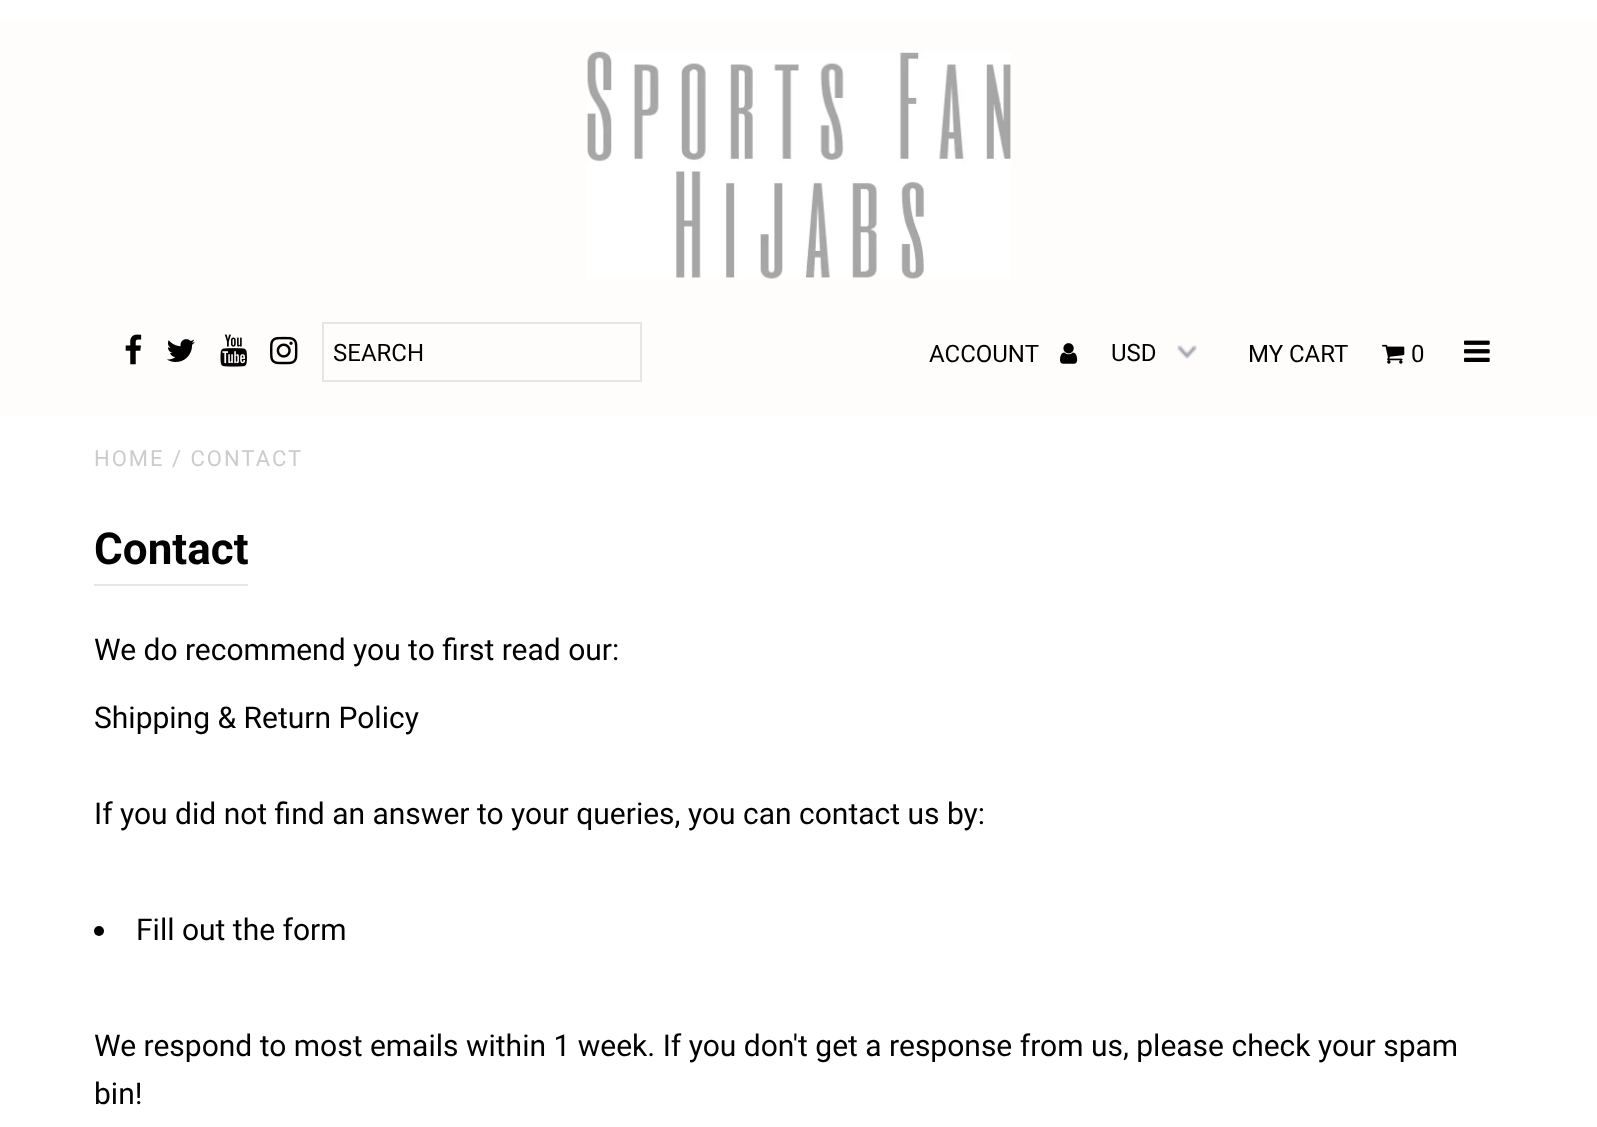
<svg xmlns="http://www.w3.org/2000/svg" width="1597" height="1127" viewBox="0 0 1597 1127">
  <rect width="100%" height="100%" fill="rgb(255,255,255)"/>
  <rect x="0" y="20" width="1597" height="396" fill="rgb(255,252,252)"/>
  <image x="587" y="51" width="424" height="228" href="pic1.png"/>
  <image x="125" y="334" width="17" height="31" href="pic2.png"/>
  <image x="167" y="339" width="28" height="23" href="pic3.png"/>
  <image x="220" y="334" width="27" height="33" href="pic4.png"/>
  <image x="270" y="336" width="28" height="29" href="pic5.png"/>
  <rect x="323" y="323" width="318" height="58" fill="none" stroke="rgb(229,229,229)" stroke-width="2"/>
  <g font-family="Roboto" font-size="24" fill="rgb(0,0,0)">
    <text x="333" y="361">SEARCH</text>
    <text x="929" y="362">ACCOUNT</text>
  </g>
  <image x="1060" y="343" width="18" height="21" href="pic6.png"/>
  <image x="1177" y="345" width="20" height="14" href="pic7.png"/>
  <g font-family="Roboto" font-size="24" fill="rgb(0,0,0)">
    <text x="1111" y="361">USD</text>
    <text x="1248" y="362">MY CART</text>
  </g>
  <image x="1382" y="344" width="23" height="20" href="pic8.png"/>
  <text x="1411" y="362" font-family="Roboto" font-size="24" fill="rgb(0,0,0)">0</text>
  <image x="1464" y="340" width="26" height="22" href="pic9.png"/>
  <text x="94" y="466" font-family="Roboto" font-size="22" letter-spacing="2" fill="rgb(204,204,204)">HOME / CONTACT</text>
  <rect x="94" y="584" width="154" height="2" fill="rgb(229,229,229)"/>
  <text x="94" y="564" font-family="Roboto" font-size="44" font-weight="bold" fill="rgb(0,0,0)">Contact</text>
  <g font-family="Roboto" font-size="30" fill="rgb(0,0,0)">
    <text x="94" y="660">We do recommend you to first read our:</text>
    <text x="94" y="728">Shipping &amp; Return Policy</text>
    <text x="94" y="824">If you did not find an answer to your queries, you can contact us by:</text>
  </g>
  <circle cx="99" cy="931" r="5" fill="rgb(0,0,0)"/>
  <g font-family="Roboto" font-size="30" fill="rgb(0,0,0)">
    <text x="136" y="940">Fill out the form</text>
    <text>
      <tspan x="94" y="1056">We respond to most emails within 1 week. If you don't get a response from us, please check your spam</tspan>
      <tspan x="94" y="1104">bin!</tspan>
    </text>
  </g>
</svg>
